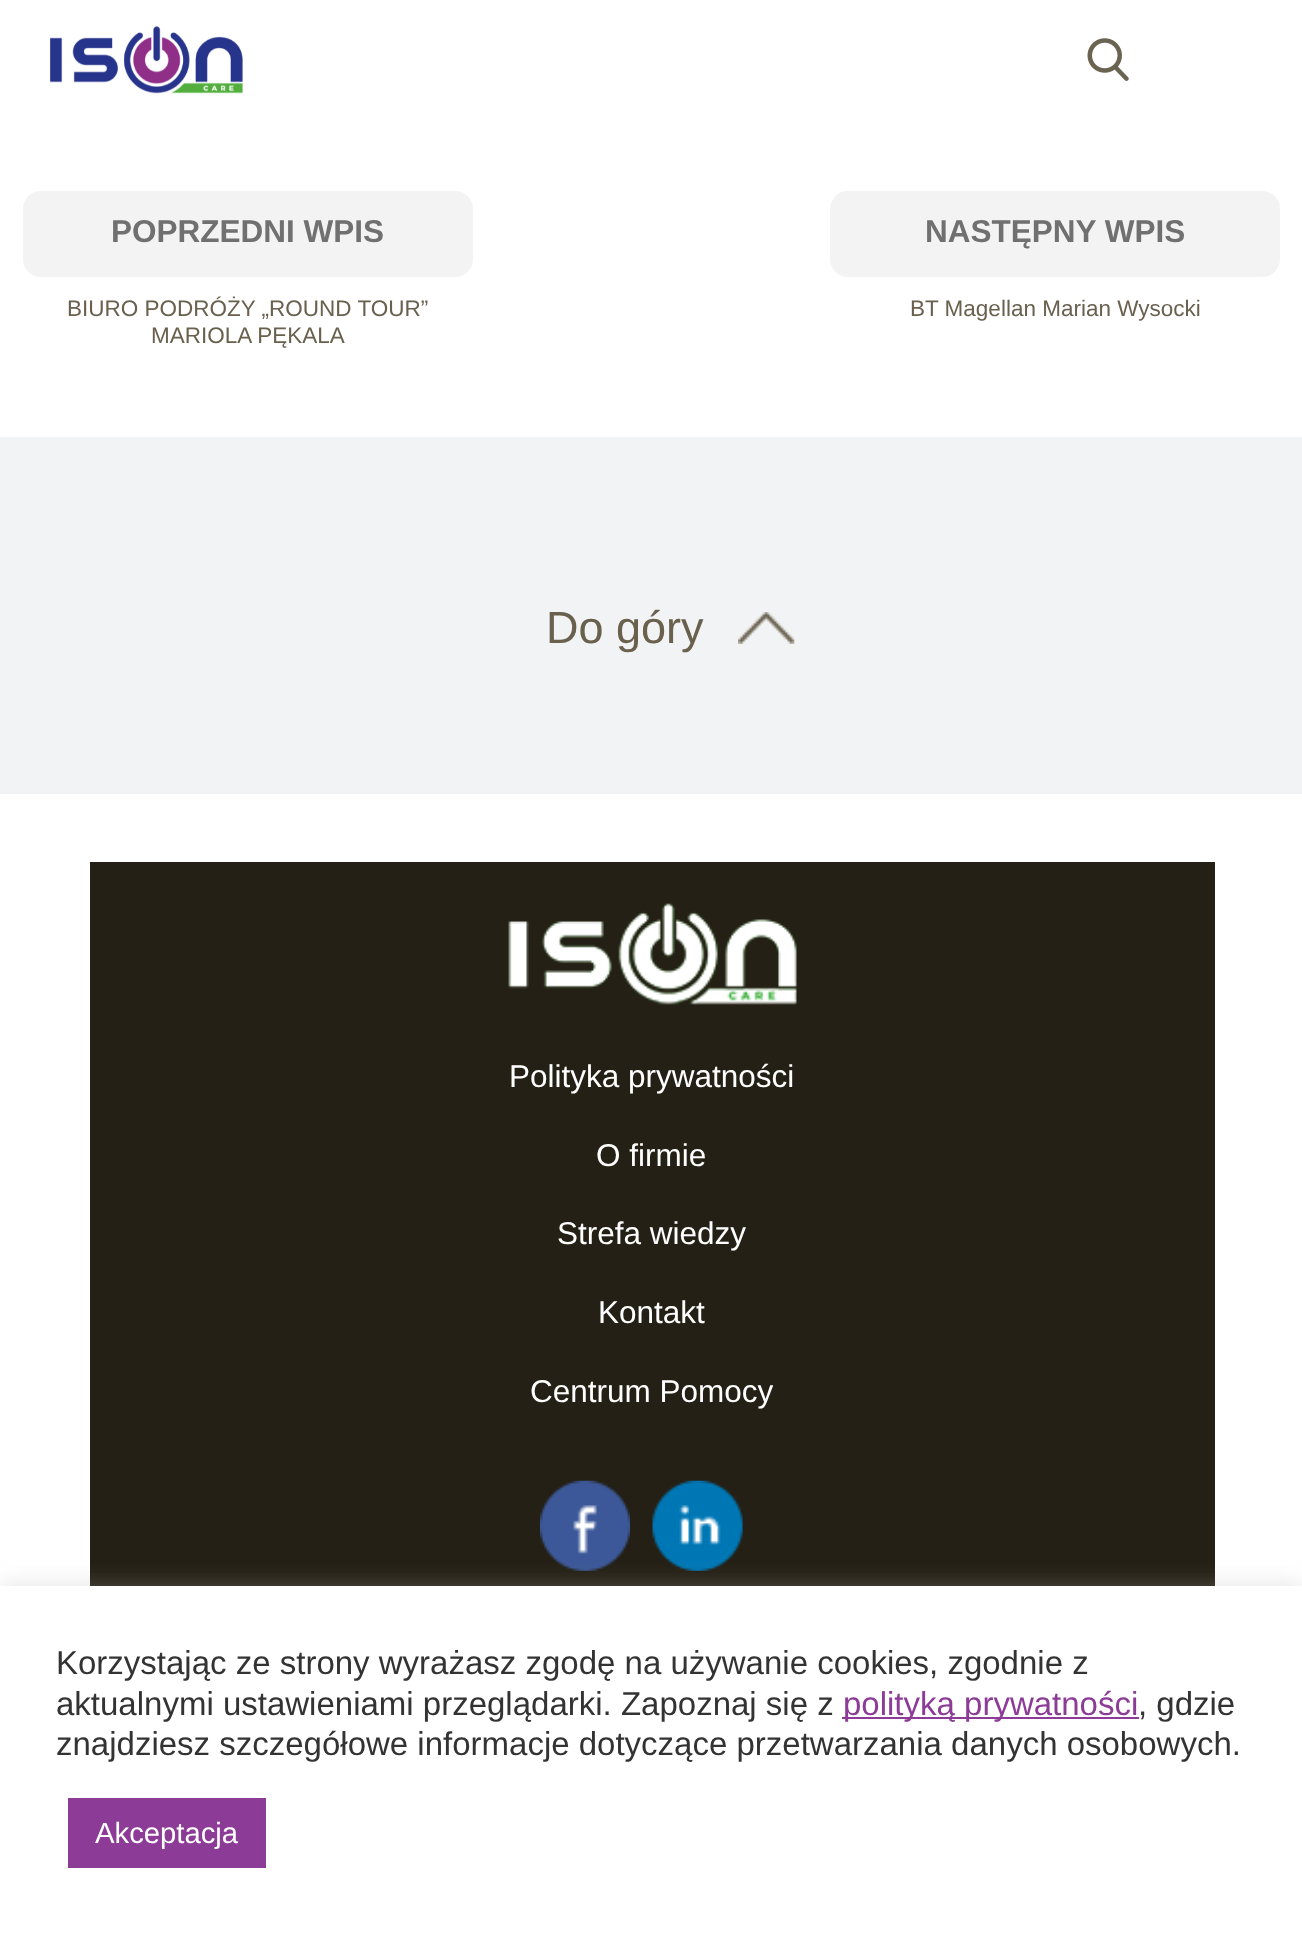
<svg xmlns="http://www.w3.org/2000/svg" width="1302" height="1935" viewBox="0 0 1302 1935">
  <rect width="100%" height="100%" fill="rgb(255,255,255)"/>
  <image x="50" y="26" width="193" height="68" href="pic1.png"/>
  <image x="1087" y="38" width="42" height="43" href="pic2.png"/>
  <rect x="23" y="191" width="450" height="86" rx="18" fill="rgb(243,243,243)"/>
  <text x="111" y="242" font-family="Liberation Sans" font-size="31.5" font-weight="bold" fill="rgb(112,112,112)">POPRZEDNI WPIS</text>
  <g font-family="Liberation Sans" font-size="22.5" fill="rgb(105,96,78)">
    <text x="67" y="316">BIURO PODRÓŻY „ROUND TOUR”</text>
    <text x="151" y="343">MARIOLA PĘKALA</text>
  </g>
  <rect x="830" y="191" width="450" height="86" rx="18" fill="rgb(243,243,243)"/>
  <text x="925" y="242" font-family="Liberation Sans" font-size="31.5" font-weight="bold" fill="rgb(112,112,112)">NASTĘPNY WPIS</text>
  <text x="910" y="316" font-family="Liberation Sans" font-size="22.5" fill="rgb(105,96,78)">BT Magellan Marian Wysocki</text>
  <rect x="0" y="437" width="1302" height="357" fill="rgb(242,243,244)"/>
  <image x="738" y="612" width="57" height="32" href="pic3.png"/>
  <text x="546" y="643" font-family="Liberation Sans" font-size="45" fill="rgb(105,96,78)">Do góry</text>
  <rect x="90" y="862" width="1125" height="724" fill="rgb(36,32,21)"/>
  <image x="508" y="903" width="289" height="102" href="pic4.png"/>
  <g font-family="Liberation Sans" font-size="31.5" fill="rgb(255,255,255)">
    <text x="509" y="1087">Polityka prywatności</text>
    <text x="596" y="1166">O firmie</text>
    <text x="557" y="1244">Strefa wiedzy</text>
    <text x="598" y="1323">Kontakt</text>
    <text x="530" y="1402">Centrum Pomocy</text>
  </g>
  <image x="540" y="1480" width="90" height="91" href="pic5.png"/>
  <image x="652" y="1480" width="91" height="91" href="pic6.png"/>
  <rect x="0" y="1584" width="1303" height="349" fill="rgba(172,171,171,0.3)" filter="blur(11px)"/>
  <rect x="0" y="1586" width="1302" height="349" fill="rgb(255,255,255)"/>
  <g font-family="Liberation Sans" font-size="33" fill="rgb(51,51,51)">
    <text>
      <tspan x="56" y="1674">Korzystając ze strony wyrażasz zgodę na używanie cookies, zgodnie z</tspan>
      <tspan x="56" y="1715">aktualnymi ustawieniami przeglądarki. Zapoznaj się z</tspan>
    </text>
  </g>
  <rect x="842" y="1717" width="297" height="2" fill="rgb(140,59,150)"/>
  <text x="843" y="1715" font-family="Liberation Sans" font-size="33" fill="rgb(140,59,150)">polityką prywatności</text>
  <g font-family="Liberation Sans" font-size="33" fill="rgb(51,51,51)">
    <text x="1138" y="1715">, gdzie</text>
    <text x="56" y="1755">znajdziesz szczegółowe informacje dotyczące przetwarzania danych osobowych.</text>
  </g>
  <rect x="68" y="1798" width="198" height="70" fill="rgb(140,59,150)"/>
  <text x="95" y="1843" font-family="Liberation Sans" font-size="29.25" fill="rgb(255,255,255)">Akceptacja</text>
</svg>
